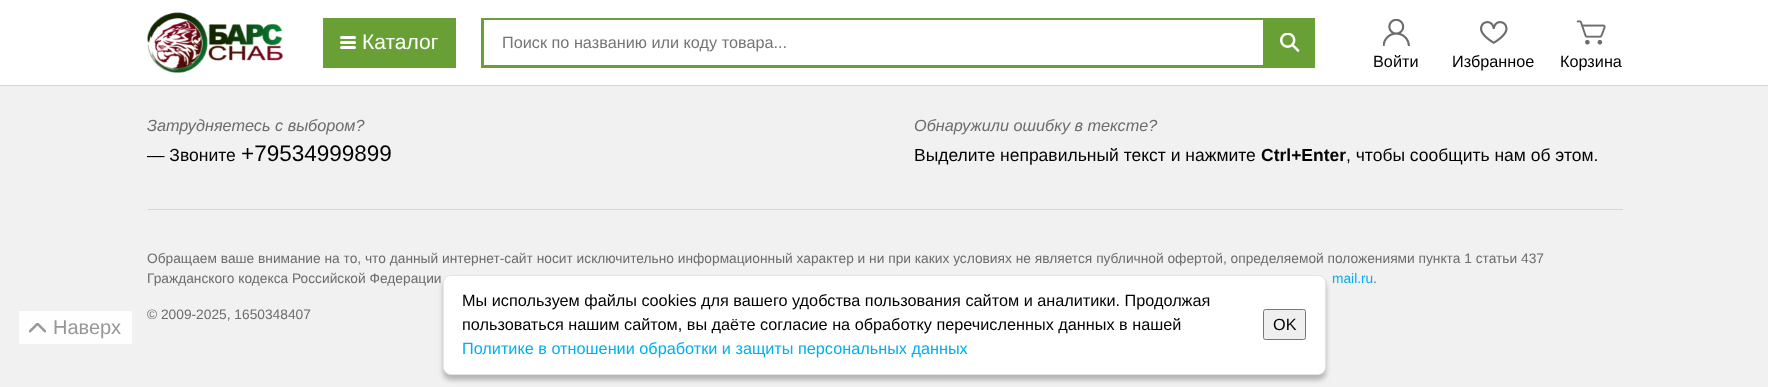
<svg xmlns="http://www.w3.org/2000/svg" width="1768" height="387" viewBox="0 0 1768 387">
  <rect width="100%" height="100%" fill="rgb(241,241,241)"/>
  <rect x="0" y="0" width="1768" height="85" fill="rgb(255,255,255)"/>
  <rect x="0" y="85" width="1768" height="1" fill="rgb(214,214,214)"/>
  <image x="147" y="12" width="136" height="61" href="pic1.png"/>
  <rect x="323" y="18" width="133" height="50" fill="rgb(104,160,54)"/>
  <rect x="340" y="41" width="16" height="3" rx="1.5" fill="rgb(255,255,255)"/>
  <rect x="340" y="36" width="16" height="3" rx="1.5" fill="rgb(255,255,255)"/>
  <rect x="340" y="46" width="16" height="3" rx="1.5" fill="rgb(255,255,255)"/>
  <text x="362" y="49" font-family="Liberation Sans" font-size="21" fill="rgb(255,255,255)">Каталог</text>
  <rect x="482.5" y="19.5" width="831" height="47" fill="none" stroke="rgb(104,160,54)" stroke-width="3"/>
  <rect x="484" y="20" width="779" height="1" fill="rgb(255,255,255)"/>
  <text x="502" y="48" font-family="Liberation Sans" font-size="16.25" fill="rgb(117,117,117)">Поиск по названию или коду товара...</text>
  <rect x="1263" y="21" width="49" height="44" fill="rgb(104,160,54)"/>
  <image x="1280" y="33" width="20" height="19" href="pic2.png"/>
  <image x="1383" y="19" width="27" height="27" href="pic3.png"/>
  <text x="1373" y="67" font-family="Liberation Sans" font-size="16.25" fill="rgb(0,0,0)">Войти</text>
  <image x="1480" y="21" width="28" height="23" href="pic4.png"/>
  <text x="1452" y="67" font-family="Liberation Sans" font-size="16.25" fill="rgb(0,0,0)">Избранное</text>
  <image x="1576" y="20" width="30" height="25" href="pic5.png"/>
  <text x="1560" y="67" font-family="Liberation Sans" font-size="16.25" fill="rgb(0,0,0)">Корзина</text>
  <text x="147" y="131" font-family="Liberation Sans" font-size="16.25" font-style="italic" fill="rgb(108,108,108)">Затрудняетесь с выбором?</text>
  <text x="147" y="161" font-family="Liberation Sans" font-size="17.5" fill="rgb(0,0,0)">— Звоните</text>
  <text x="241" y="161" font-family="Liberation Sans" font-size="22.5" fill="rgb(0,0,0)">+79534999899</text>
  <text x="914" y="131" font-family="Liberation Sans" font-size="16.25" font-style="italic" fill="rgb(108,108,108)">Обнаружили ошибку в тексте?</text>
  <text x="914" y="161" font-family="Liberation Sans" font-size="17.5" fill="rgb(0,0,0)">Выделите неправильный текст и нажмите</text>
  <text x="1261" y="161" font-family="Liberation Sans" font-size="17.5" font-weight="bold" fill="rgb(0,0,0)">Ctrl+Enter</text>
  <text x="1346" y="161" font-family="Liberation Sans" font-size="17.5" fill="rgb(0,0,0)">, чтобы сообщить нам об этом.</text>
  <rect x="148" y="209" width="1475" height="1" fill="rgb(214,214,214)"/>
  <g font-family="Liberation Sans" font-size="13.75" fill="rgb(108,108,108)">
    <text>
      <tspan x="147" y="263">Обращаем ваше внимание на то, что данный интернет-сайт носит исключительно информационный характер и ни при каких условиях не является публичной офертой, определяемой положениями пункта 1 статьи 437</tspan>
      <tspan x="147" y="283">Гражданского кодекса Российской Федерации</tspan>
    </text>
  </g>
  <text x="1332" y="283" font-family="Liberation Sans" font-size="13.75" fill="rgb(0,175,240)">mail.ru</text>
  <g font-family="Liberation Sans" font-size="13.75" fill="rgb(108,108,108)">
    <text x="1373" y="283">.</text>
    <text x="147" y="319">© 2009-2025, 1650348407</text>
  </g>
  <rect x="19" y="311" width="113" height="33" fill="rgb(254,254,254)"/>
  <image x="29" y="323" width="17" height="10" href="pic6.png"/>
  <text x="53" y="334" font-family="Liberation Sans" font-size="20" fill="rgb(151,151,151)">Наверх</text>
  <rect x="443" y="280" width="883" height="100" rx="8" fill="rgba(0,0,0,0.25)" filter="blur(2.5px)"/>
  <rect x="443.5" y="275.5" width="882" height="99" rx="7.5" fill="rgb(255,255,255)" stroke="rgb(229,229,229)"/>
  <g font-family="Liberation Sans" font-size="16.25" fill="rgb(0,0,0)">
    <text>
      <tspan x="462" y="306">Мы используем файлы cookies для вашего удобства пользования сайтом и аналитики. Продолжая</tspan>
      <tspan x="462" y="330">пользоваться нашим сайтом, вы даёте согласие на обработку перечисленных данных в нашей</tspan>
    </text>
  </g>
  <text x="462" y="354" font-family="Liberation Sans" font-size="16.25" fill="rgb(0,175,240)">Политике в отношении обработки и защиты персональных данных</text>
  <rect x="1263.5" y="309.5" width="42" height="30" rx="2" fill="rgb(239,239,239)" stroke="rgb(118,118,118)"/>
  <text x="1273" y="330" font-family="Liberation Sans" font-size="16.25" fill="rgb(0,0,0)">OK</text>
</svg>
